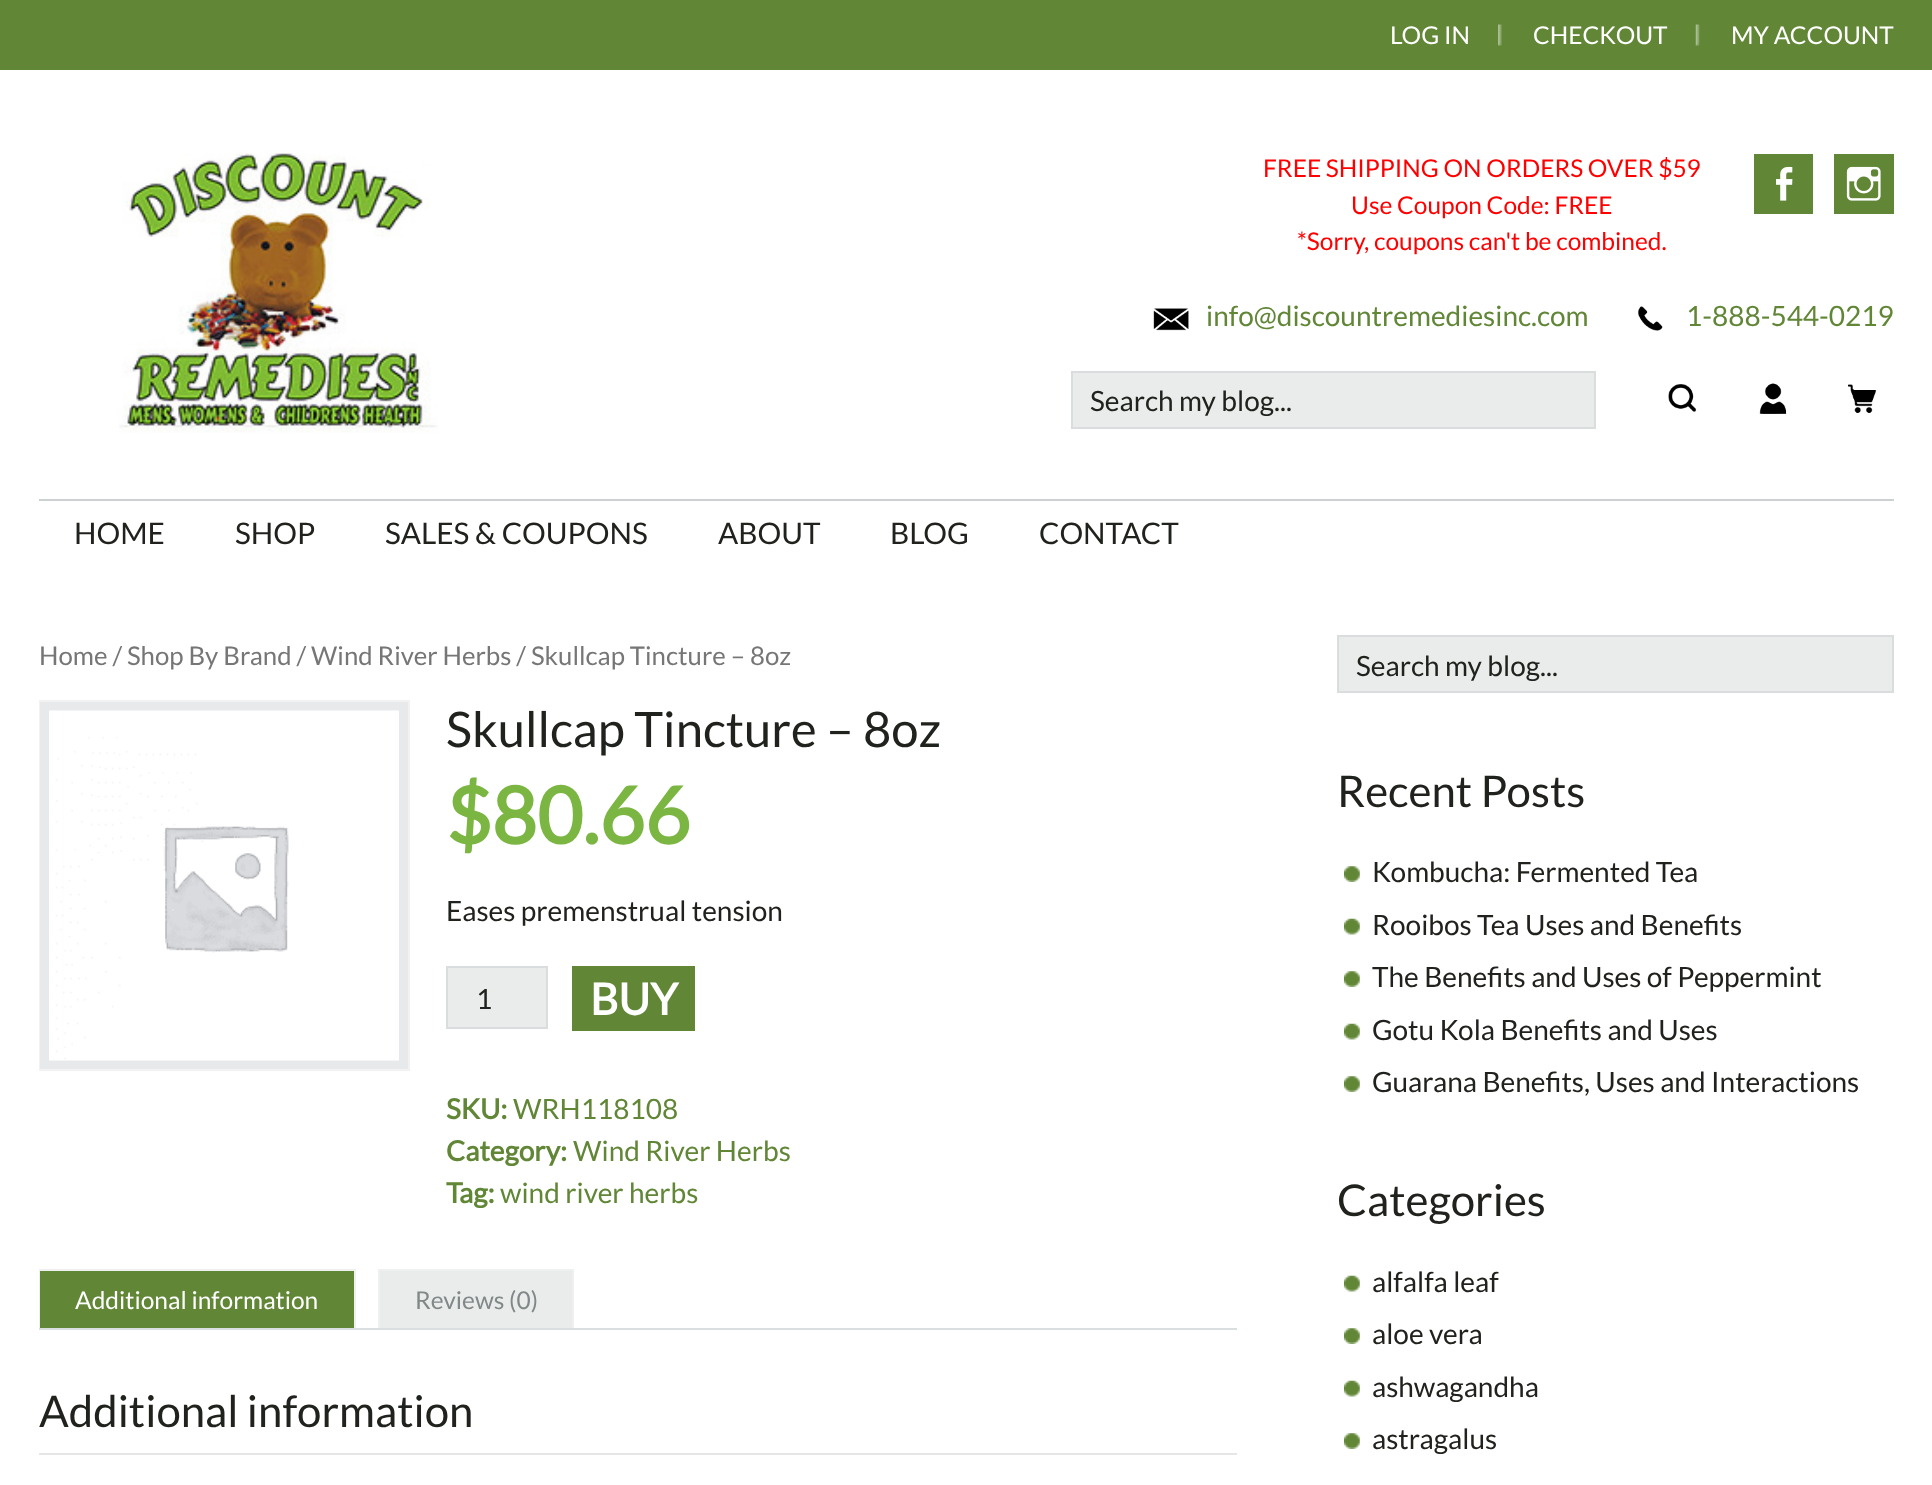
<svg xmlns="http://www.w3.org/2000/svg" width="1932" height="1485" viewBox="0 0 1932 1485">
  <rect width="100%" height="100%" fill="rgb(255,255,255)"/>
  <rect x="0" y="0" width="1932" height="70" fill="rgb(96,134,54)"/>
  <image x="1498" y="24" width="4" height="22" href="pic1.png"/>
  <text x="1390" y="44" font-family="Lato" font-size="24.5" fill="rgb(255,255,255)">LOG IN</text>
  <image x="1695" y="24" width="5" height="22" href="pic2.png"/>
  <g font-family="Lato" font-size="24.5" fill="rgb(255,255,255)">
    <text x="1533" y="44">CHECKOUT</text>
    <text x="1731" y="44">MY ACCOUNT</text>
  </g>
  <image x="119" y="151" width="319" height="282" href="pic3.png"/>
  <g font-family="Lato" font-size="24.5" fill="rgb(255,0,0)">
    <text x="1263" y="177">FREE SHIPPING ON ORDERS OVER $59</text>
    <text x="1351" y="214">Use Coupon Code: FREE</text>
    <text x="1297" y="250">*Sorry, coupons can't be combined.</text>
  </g>
  <rect x="1754" y="154" width="59" height="60" fill="rgb(96,134,54)"/>
  <image x="1776" y="166" width="17" height="35" href="pic4.png"/>
  <rect x="1834" y="154" width="60" height="60" fill="rgb(96,134,54)"/>
  <image x="1846" y="166" width="35" height="35" href="pic5.png"/>
  <image x="1153" y="308" width="36" height="23" href="pic6.png"/>
  <text x="1206" y="326" font-family="Lato" font-size="28" fill="rgb(96,134,54)">info@discountremediesinc.com</text>
  <image x="1638" y="306" width="25" height="25" href="pic7.png"/>
  <text x="1686" y="326" font-family="Lato" font-size="28" fill="rgb(96,134,54)">1-888-544-0219</text>
  <image x="1668" y="384" width="29" height="28" href="pic8.png"/>
  <image x="1759" y="383" width="28" height="31" href="pic9.png"/>
  <image x="1848" y="384" width="29" height="29" href="pic10.png"/>
  <rect x="1072" y="372" width="523" height="56" fill="rgb(234,236,236)" stroke="rgb(218,221,222)" stroke-width="2"/>
  <text x="1090" y="411" font-family="Lato" font-size="28" fill="rgb(32,34,29)">Search my blog...</text>
  <rect x="39" y="499" width="1855" height="2" fill="rgb(205,209,210)"/>
  <g font-family="Lato" font-size="29.75" fill="rgb(32,34,29)">
    <text x="74" y="544">HOME</text>
    <text x="235" y="544">SHOP</text>
    <text x="385" y="544">SALES &amp; COUPONS</text>
    <text x="718" y="544">ABOUT</text>
    <text x="890" y="544">BLOG</text>
    <text x="1039" y="544">CONTACT</text>
  </g>
  <text x="39" y="665" font-family="Lato" font-size="25.75" fill="rgb(118,118,118)">Home / Shop By Brand / Wind River Herbs / Skullcap Tincture – 8oz</text>
  <rect x="40" y="701" width="369" height="369" fill="none" stroke="rgb(242,242,242)" stroke-width="2"/>
  <rect x="44.5" y="706.5" width="359" height="358" fill="none" stroke="rgb(231,233,234)" stroke-width="9"/>
  <image x="49" y="710" width="350" height="351" href="pic11.png"/>
  <text x="446" y="747" font-family="Lato" font-size="49" fill="rgb(32,34,29)">Skullcap Tincture – 8oz</text>
  <text x="446" y="844" font-family="Lato" font-size="78.5" font-weight="bold" fill="rgb(123,182,66)">$80.66</text>
  <text x="446" y="921" font-family="Lato" font-size="28" fill="rgb(32,34,29)">Eases premenstrual tension</text>
  <rect x="447" y="967" width="100" height="61" fill="rgb(234,236,236)" stroke="rgb(218,221,222)" stroke-width="2"/>
  <text x="476" y="1009" font-family="Lato" font-size="28" fill="rgb(32,34,29)">1</text>
  <rect x="572" y="966" width="123" height="65" fill="rgb(96,134,54)"/>
  <text x="590" y="1015" font-family="Lato" font-size="43.75" font-weight="bold" fill="rgb(255,255,255)">BUY</text>
  <text x="446" y="1119" font-family="Lato" font-size="28" font-weight="bold" fill="rgb(96,134,54)">SKU:</text>
  <text x="513" y="1119" font-family="Lato" font-size="28" fill="rgb(96,134,54)">WRH118108</text>
  <text x="446" y="1161" font-family="Lato" font-size="28" font-weight="bold" fill="rgb(96,134,54)">Category:</text>
  <text x="573" y="1161" font-family="Lato" font-size="28" fill="rgb(96,134,54)">Wind River Herbs</text>
  <text x="446" y="1203" font-family="Lato" font-size="28" font-weight="bold" fill="rgb(96,134,54)">Tag:</text>
  <text x="500" y="1203" font-family="Lato" font-size="28" fill="rgb(96,134,54)">wind river herbs</text>
  <rect x="39" y="1328" width="1198" height="2" fill="rgb(219,222,222)"/>
  <rect x="39" y="1269" width="316" height="2" fill="rgb(239,240,240)"/>
  <rect x="354" y="1269" width="2" height="59" fill="rgb(239,240,240)"/>
  <rect x="39" y="1269" width="2" height="59" fill="rgb(239,240,240)"/>
  <rect x="40" y="1271" width="314" height="57" fill="rgb(96,134,54)"/>
  <text x="75" y="1309" font-family="Lato" font-size="24.5" fill="rgb(255,255,255)">Additional information</text>
  <rect x="378" y="1269" width="196" height="2" fill="rgb(239,240,240)"/>
  <rect x="572" y="1269" width="2" height="59" fill="rgb(239,240,240)"/>
  <rect x="378" y="1269" width="2" height="59" fill="rgb(239,240,240)"/>
  <rect x="380" y="1271" width="192" height="57" fill="rgb(234,236,236)"/>
  <text x="415" y="1309" font-family="Lato" font-size="24.5" fill="rgb(129,136,136)">Reviews (0)</text>
  <text x="39" y="1427" font-family="Lato" font-size="43.75" fill="rgb(32,34,29)">Additional information</text>
  <rect x="39" y="1453" width="1198" height="2" fill="rgb(230,230,230)"/>
  <rect x="1338" y="636" width="555" height="56" fill="rgb(234,236,236)" stroke="rgb(218,221,222)" stroke-width="2"/>
  <text x="1356" y="676" font-family="Lato" font-size="28" fill="rgb(32,34,29)">Search my blog...</text>
  <text x="1337" y="807" font-family="Lato" font-size="43.75" fill="rgb(32,34,29)">Recent Posts</text>
  <image x="1344" y="866" width="16" height="16" href="pic12.png"/>
  <text x="1372" y="882" font-family="Lato" font-size="28" fill="rgb(32,34,29)">Kombucha: Fermented Tea</text>
  <image x="1344" y="918" width="16" height="17" href="pic13.png"/>
  <text x="1372" y="935" font-family="Lato" font-size="28" fill="rgb(32,34,29)">Rooibos Tea Uses and Benefits</text>
  <image x="1344" y="971" width="16" height="16" href="pic12.png"/>
  <text x="1372" y="987" font-family="Lato" font-size="28" fill="rgb(32,34,29)">The Benefits and Uses of Peppermint</text>
  <image x="1344" y="1023" width="16" height="17" href="pic13.png"/>
  <text x="1372" y="1040" font-family="Lato" font-size="28" fill="rgb(32,34,29)">Gotu Kola Benefits and Uses</text>
  <image x="1344" y="1076" width="16" height="16" href="pic12.png"/>
  <text x="1372" y="1092" font-family="Lato" font-size="28" fill="rgb(32,34,29)">Guarana Benefits, Uses and Interactions</text>
  <text x="1337" y="1216" font-family="Lato" font-size="43.75" fill="rgb(32,34,29)">Categories</text>
  <image x="1344" y="1275" width="16" height="17" href="pic13.png"/>
  <text x="1372" y="1292" font-family="Lato" font-size="28" fill="rgb(32,34,29)">alfalfa leaf</text>
  <image x="1344" y="1328" width="16" height="16" href="pic12.png"/>
  <text x="1372" y="1344" font-family="Lato" font-size="28" fill="rgb(32,34,29)">aloe vera</text>
  <image x="1344" y="1380" width="16" height="17" href="pic13.png"/>
  <text x="1372" y="1397" font-family="Lato" font-size="28" fill="rgb(32,34,29)">ashwagandha</text>
  <image x="1344" y="1433" width="16" height="16" href="pic12.png"/>
  <text x="1372" y="1449" font-family="Lato" font-size="28" fill="rgb(32,34,29)">astragalus</text>
</svg>
